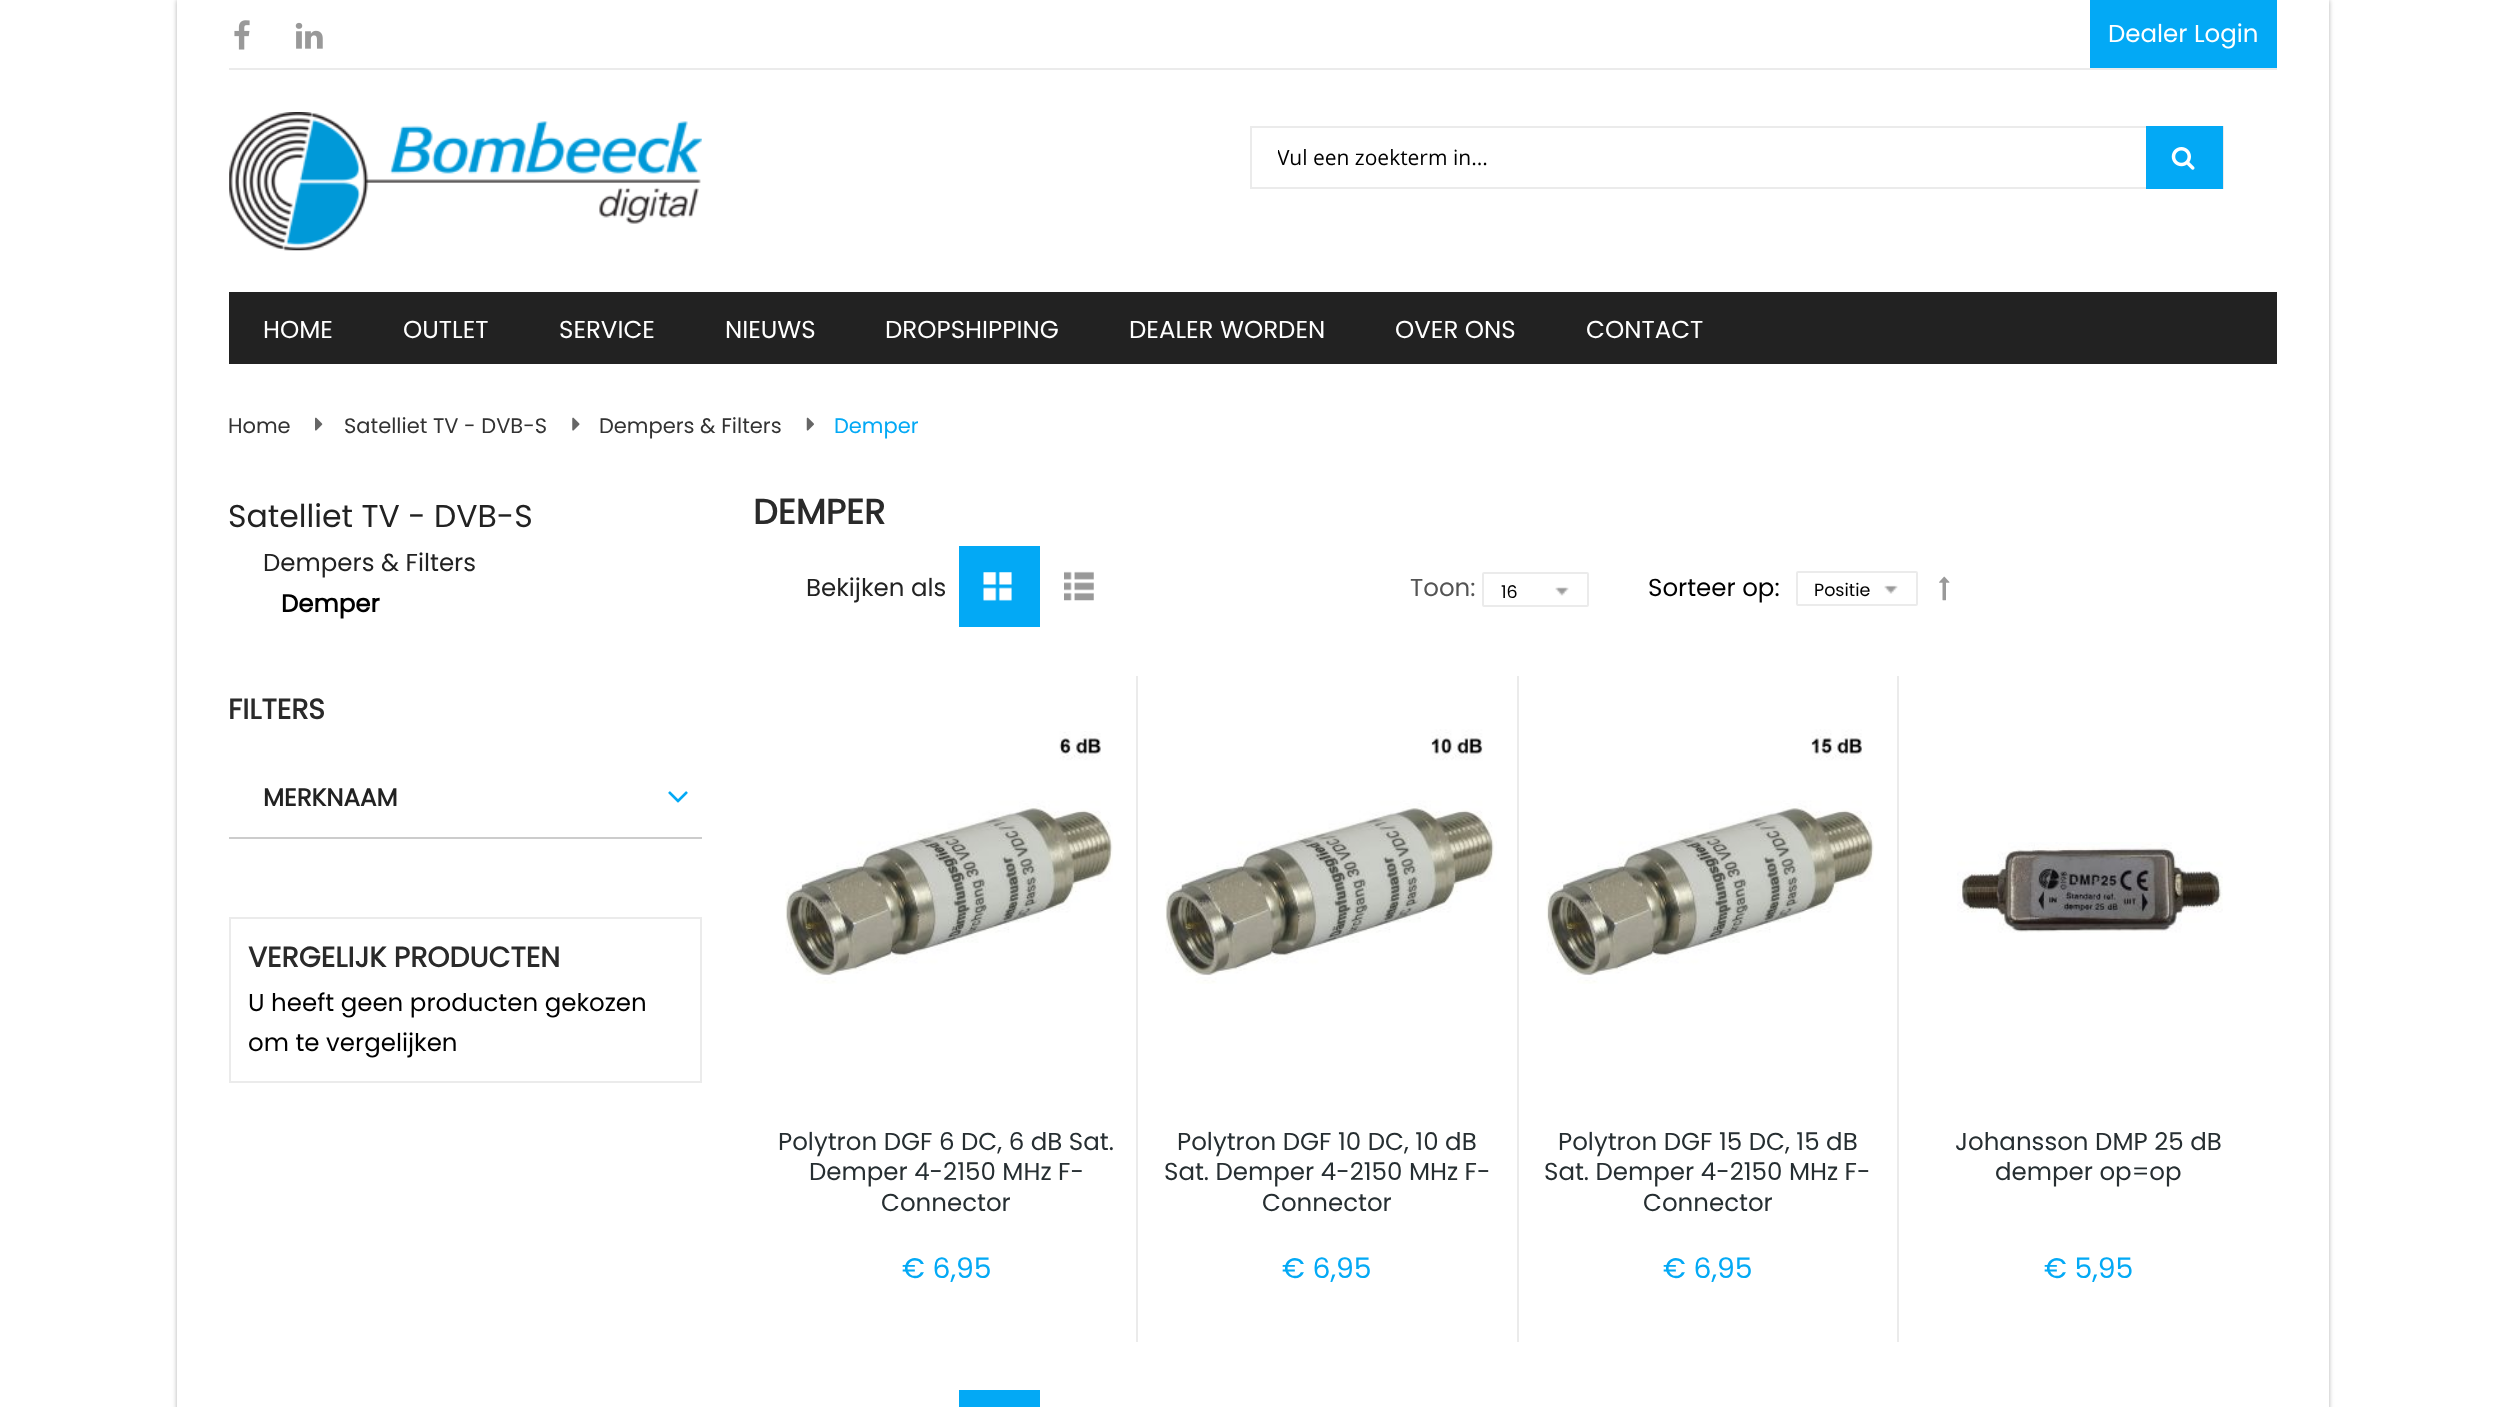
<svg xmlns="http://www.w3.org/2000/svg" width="2504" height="1407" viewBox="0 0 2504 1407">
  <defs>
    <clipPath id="clip1"><path d="M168 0H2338V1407H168ZM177 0H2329V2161H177Z" clip-rule="evenodd"/></clipPath>
    <clipPath id="clip2"><rect x="1278" y="128" width="855" height="61"/></clipPath>
  </defs>
  <rect width="100%" height="100%" fill="rgb(255,255,255)"/>
  <g clip-path="url(#clip1)">
    <rect x="177" y="0" width="2152" height="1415" fill="rgba(0,0,0,0.3)" filter="blur(2.5px)"/>
  </g>
  <rect x="229" y="68" width="2048" height="2" fill="rgb(235,235,235)"/>
  <image x="234" y="20" width="16" height="30" href="pic1.png"/>
  <image x="295" y="22" width="28" height="27" href="pic2.png"/>
  <rect x="2090" y="0" width="187" height="68" fill="rgb(3,169,245)"/>
  <text x="2108" y="42" font-family="Poppins" font-size="24.5" fill="rgb(255,255,255)">Dealer Login</text>
  <image x="229" y="112" width="473" height="139" href="pic3.png"/>
  <rect x="1251" y="127" width="972" height="61" fill="none" stroke="rgb(235,235,235)" stroke-width="2"/>
  <g clip-path="url(#clip2)">
    <text x="1277" y="165" font-family="Open Sans" font-size="21" fill="rgb(0,0,0)">Vul een zoekterm in...</text>
  </g>
  <rect x="2146" y="126" width="77" height="63" fill="rgb(3,169,245)"/>
  <image x="2171" y="147" width="24" height="23" href="pic4.png"/>
  <rect x="229" y="292" width="2048" height="72" fill="rgb(34,34,34)"/>
  <g font-family="Poppins" font-size="24.5" fill="rgb(255,255,255)">
    <text x="263" y="338">HOME</text>
    <text x="403" y="338">OUTLET</text>
    <text x="559" y="338">SERVICE</text>
    <text x="725" y="338">NIEUWS</text>
    <text x="885" y="338">DROPSHIPPING</text>
    <text x="1129" y="338">DEALER WORDEN</text>
    <text x="1395" y="338">OVER ONS</text>
    <text x="1586" y="338">CONTACT</text>
  </g>
  <text x="228" y="433" font-family="Poppins" font-size="21" fill="rgb(51,51,51)">Home</text>
  <image x="315" y="417" width="8" height="14" href="pic5.png"/>
  <text x="344" y="433" font-family="Poppins" font-size="21" fill="rgb(51,51,51)">Satelliet TV - DVB-S</text>
  <image x="572" y="417" width="8" height="14" href="pic6.png"/>
  <text x="599" y="433" font-family="Poppins" font-size="21" fill="rgb(51,51,51)">Dempers &amp; Filters</text>
  <image x="806" y="417" width="8" height="14" href="pic7.png"/>
  <text x="834" y="433" font-family="Poppins" font-size="21" fill="rgb(3,169,245)">Demper</text>
  <text x="228" y="527" font-family="Poppins" font-size="31.5" fill="rgb(34,34,34)">Satelliet TV - DVB-S</text>
  <text x="263" y="571" font-family="Poppins" font-size="24.5" fill="rgb(34,34,34)">Dempers &amp; Filters</text>
  <text x="281" y="612" font-family="Poppins" font-size="24.5" font-weight="bold" fill="rgb(0,0,0)">Demper</text>
  <text x="228" y="719" font-family="Poppins" font-size="28.25" font-weight="bold" fill="rgb(42,42,42)">FILTERS</text>
  <rect x="229" y="837" width="473" height="2" fill="rgb(204,204,204)"/>
  <text x="263" y="806" font-family="Poppins" font-size="24.5" font-weight="bold" fill="rgb(34,34,34)">MERKNAAM</text>
  <image x="668" y="791" width="20" height="12" href="pic8.png"/>
  <rect x="230" y="918" width="471" height="164" fill="none" stroke="rgb(235,235,235)" stroke-width="2"/>
  <text x="248" y="967" font-family="Poppins" font-size="28.25" font-weight="bold" fill="rgb(42,42,42)">VERGELIJK PRODUCTEN</text>
  <g font-family="Poppins" font-size="24.5" fill="rgb(0,0,0)">
    <text>
      <tspan x="248" y="1011">U heeft geen producten gekozen</tspan>
      <tspan x="248" y="1051">om te vergelijken</tspan>
    </text>
  </g>
  <text x="753" y="524" font-family="Poppins" font-size="35" font-weight="bold" fill="rgb(42,42,42)">DEMPER</text>
  <text x="806" y="596" font-family="Poppins" font-size="24.5" fill="rgb(34,34,34)">Bekijken als</text>
  <rect x="959" y="546" width="81" height="81" fill="rgb(3,169,245)"/>
  <image x="983" y="572" width="29" height="29" href="pic9.png"/>
  <image x="1064" y="571" width="30" height="30" href="pic10.png"/>
  <text x="1410" y="596" font-family="Poppins" font-size="24.5" fill="rgb(84,84,84)">Toon:</text>
  <image x="1555" y="587" width="14" height="9" href="pic11.png"/>
  <rect x="1483" y="573" width="105" height="33" rx="1" fill="none" stroke="rgb(235,235,235)" stroke-width="2"/>
  <text x="1501" y="598" font-family="Poppins" font-size="17.5" fill="rgb(0,0,0)">16</text>
  <text x="1648" y="596" font-family="Poppins" font-size="24.5" fill="rgb(0,0,0)">Sorteer op:</text>
  <image x="1884" y="585" width="14" height="9" href="pic12.png"/>
  <rect x="1797" y="572" width="120" height="33" rx="1" fill="none" stroke="rgb(235,235,235)" stroke-width="2"/>
  <text x="1814" y="596" font-family="Poppins" font-size="17.5" fill="rgb(0,0,0)">Positie</text>
  <image x="1939" y="576" width="11" height="25" href="pic13.png"/>
  <rect x="1136" y="676" width="2" height="666" fill="rgb(235,235,235)"/>
  <image x="785" y="731" width="328" height="253" href="pic14.png"/>
  <g font-family="Poppins" font-size="24.5" fill="rgb(38,46,49)">
    <text x="778" y="1150">Polytron DGF 6 DC, 6 dB Sat.</text>
    <text x="809" y="1180">Demper 4-2150 MHz F-</text>
    <text x="881" y="1211">Connector</text>
  </g>
  <text x="902" y="1278" font-family="Poppins" font-size="28.25" fill="rgb(3,169,245)">€ 6,95</text>
  <rect x="1517" y="676" width="2" height="666" fill="rgb(235,235,235)"/>
  <image x="1165" y="729" width="332" height="255" href="pic15.png"/>
  <g font-family="Poppins" font-size="24.5" fill="rgb(38,46,49)">
    <text x="1177" y="1150">Polytron DGF 10 DC, 10 dB</text>
    <text x="1164" y="1180">Sat. Demper 4-2150 MHz F-</text>
    <text x="1262" y="1211">Connector</text>
  </g>
  <text x="1282" y="1278" font-family="Poppins" font-size="28.25" fill="rgb(3,169,245)">€ 6,95</text>
  <rect x="1897" y="676" width="2" height="666" fill="rgb(235,235,235)"/>
  <image x="1546" y="729" width="328" height="255" href="pic16.png"/>
  <g font-family="Poppins" font-size="24.5" fill="rgb(38,46,49)">
    <text x="1558" y="1150">Polytron DGF 15 DC, 15 dB</text>
    <text x="1544" y="1180">Sat. Demper 4-2150 MHz F-</text>
    <text x="1643" y="1211">Connector</text>
  </g>
  <text x="1663" y="1278" font-family="Poppins" font-size="28.25" fill="rgb(3,169,245)">€ 6,95</text>
  <image x="1957" y="842" width="266" height="91" href="pic17.png"/>
  <g font-family="Poppins" font-size="24.5" fill="rgb(38,46,49)">
    <text x="1955" y="1150">Johansson DMP 25 dB</text>
    <text x="1995" y="1180">demper op=op</text>
  </g>
  <text x="2044" y="1278" font-family="Poppins" font-size="28.25" fill="rgb(3,169,245)">€ 5,95</text>
  <rect x="959" y="1390" width="81" height="17" fill="rgb(3,169,245)"/>
</svg>
